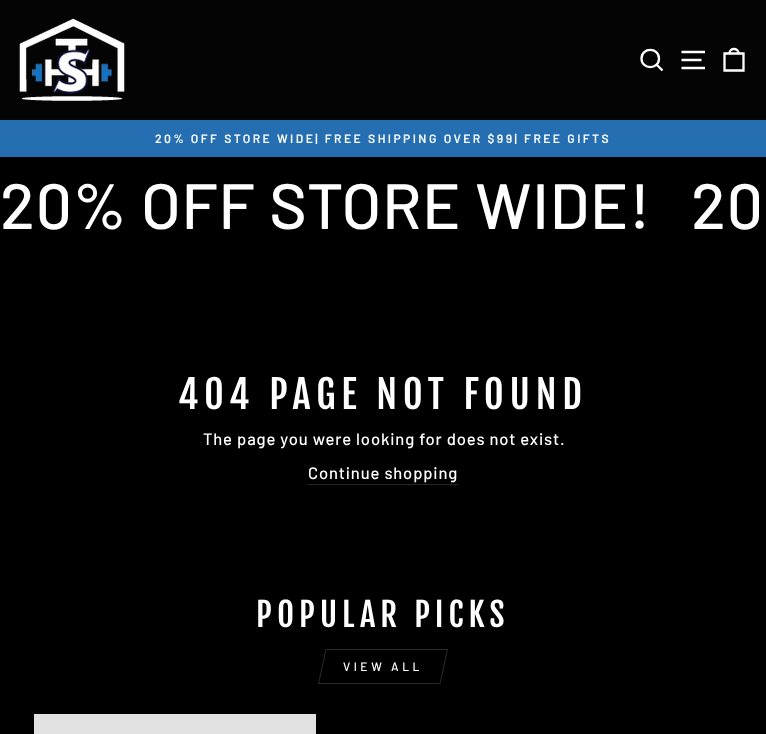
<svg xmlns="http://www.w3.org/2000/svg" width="766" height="734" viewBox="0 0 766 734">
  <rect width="100%" height="100%" fill="rgb(0,0,0)"/>
  <rect x="0" y="0" width="766" height="120" fill="rgb(4,4,4)"/>
  <image x="19" y="18" width="106" height="83" href="pic1.png"/>
  <path d="M659 58.5C659 70 641.5 70 641.5 58.5C641.5 47 659 47 659 58.5ZM662.5 70.5L656.5 64.5" fill="none" stroke="rgb(255,255,255)" stroke-width="2.3"/>
  <path d="M681.5 52H705M681.5 60H701.5M681.5 68H705" fill="none" stroke="rgb(255,255,255)" stroke-width="2.3"/>
  <path d="M724.5 53.5H743.5V70.5H724.5ZM729.5 53.5C729.5 47.5 738.5 47.5 738.5 53.5" fill="none" stroke="rgb(255,255,255)" stroke-width="2.3"/>
  <rect x="0" y="120" width="766" height="37" fill="rgb(36,110,177)"/>
  <text x="155" y="143" font-family="Barlow" font-size="12.15" font-weight="600" letter-spacing="2.43" fill="rgb(255,255,255)">20% OFF STORE WIDE| FREE SHIPPING OVER $99| FREE GIFTS</text>
  <g font-family="Barlow" font-size="64" font-weight="500" letter-spacing="0.85" fill="rgb(255,255,255)">
    <text x="0" y="229">20% OFF STORE WIDE!</text>
    <text x="691" y="229">20</text>
  </g>
  <text x="178" y="409" font-family="Fjalla One" font-size="38.25" letter-spacing="5.75" fill="rgb(255,255,255)">404 PAGE NOT FOUND</text>
  <text x="203" y="445" font-family="Barlow" font-size="16.6" font-weight="500" letter-spacing="0.85" fill="rgb(255,255,255)">The page you were looking for does not exist.</text>
  <rect x="308" y="484" width="150" height="1" fill="rgb(38,38,38)"/>
  <text x="308" y="479" font-family="Barlow" font-size="16.6" font-weight="500" letter-spacing="0.85" fill="rgb(255,255,255)">Continue shopping</text>
  <text x="256" y="627" font-family="Fjalla One" font-size="32.75" letter-spacing="5" fill="rgb(255,255,255)">POPULAR PICKS</text>
  <rect x="327" y="649" width="121" height="1" fill="rgb(43,42,39)"/>
  <rect x="318" y="683" width="121" height="1" fill="rgb(43,42,39)"/>
  <path d="M325.5 649H326.5L319 684H318Z" fill="rgb(43,42,39)"/>
  <text x="343" y="671" font-family="Barlow" font-size="12" font-weight="500" letter-spacing="3.5" fill="rgb(255,255,255)">VIEW ALL</text>
  <path d="M447 649H448L440.5 684H439.5Z" fill="rgb(43,42,39)"/>
  <rect x="34" y="714" width="282" height="20" fill="rgb(225,225,225)"/>
</svg>
